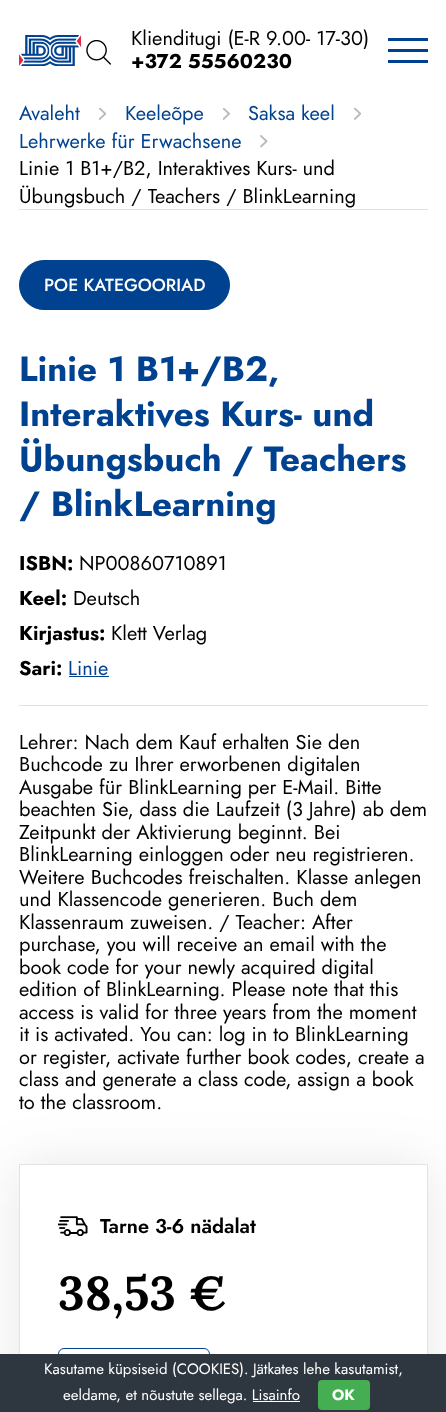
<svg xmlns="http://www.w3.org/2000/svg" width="446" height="1412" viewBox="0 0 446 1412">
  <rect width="100%" height="100%" fill="rgb(255,255,255)"/>
  <image x="19" y="35" width="62" height="31" href="pic1.png"/>
  <image x="86" y="40" width="25" height="25" href="pic2.png"/>
  <text x="131" y="45" font-family="Jost" font-size="20" fill="rgb(0,0,0)">Klienditugi (E-R 9.00- 17-30)</text>
  <text x="131" y="68" font-family="Jost" font-size="20" font-weight="bold" fill="rgb(0,0,0)">+372 55560230</text>
  <rect x="388" y="38" width="40" height="3" fill="rgb(0,66,144)"/>
  <rect x="388" y="49" width="40" height="3" fill="rgb(0,66,144)"/>
  <rect x="388" y="60" width="40" height="3" fill="rgb(0,66,144)"/>
  <text x="19" y="120" font-family="Jost" font-size="20" fill="rgb(0,66,144)">Avaleht</text>
  <image x="99" y="108" width="7" height="12" href="pic3.png"/>
  <text x="125" y="120" font-family="Jost" font-size="20" fill="rgb(0,66,144)">Keeleõpe</text>
  <image x="223" y="108" width="7" height="12" href="pic4.png"/>
  <text x="248" y="120" font-family="Jost" font-size="20" fill="rgb(0,66,144)">Saksa keel</text>
  <image x="354" y="108" width="7" height="12" href="pic3.png"/>
  <text x="19" y="148" font-family="Jost" font-size="20" fill="rgb(0,66,144)">Lehrwerke für Erwachsene</text>
  <image x="260" y="135" width="8" height="13" href="pic5.png"/>
  <g font-family="Jost" font-size="20" fill="rgb(0,0,0)">
    <text>
      <tspan x="19" y="175">Linie 1 B1+/B2, Interaktives Kurs- und</tspan>
      <tspan x="19" y="203">Übungsbuch / Teachers / BlinkLearning</tspan>
    </text>
  </g>
  <rect x="19" y="209" width="409" height="1" fill="rgb(226,226,226)"/>
  <rect x="19.5" y="260.5" width="210" height="49" rx="24.5" fill="rgb(0,66,144)" stroke="rgb(0,66,144)"/>
  <text x="44" y="291" font-family="Jost" font-size="17.5" font-weight="500" fill="rgb(255,255,255)">POE KATEGOORIAD</text>
  <g font-family="Jost" font-size="35" font-weight="bold" fill="rgb(0,66,144)">
    <text>
      <tspan x="19" y="381">Linie 1 B1+/B2,</tspan>
      <tspan x="19" y="426">Interaktives Kurs- und</tspan>
      <tspan x="19" y="471">Übungsbuch / Teachers</tspan>
      <tspan x="19" y="516">/ BlinkLearning</tspan>
    </text>
  </g>
  <text x="19" y="570" font-family="Jost" font-size="20" font-weight="bold" fill="rgb(0,0,0)">ISBN:</text>
  <text x="79" y="570" font-family="Jost" font-size="20" fill="rgb(0,0,0)">NP00860710891</text>
  <text x="19" y="605" font-family="Jost" font-size="20" font-weight="bold" fill="rgb(0,0,0)">Keel:</text>
  <text x="73" y="605" font-family="Jost" font-size="20" fill="rgb(0,0,0)">Deutsch</text>
  <text x="19" y="640" font-family="Jost" font-size="20" font-weight="bold" fill="rgb(0,0,0)">Kirjastus:</text>
  <text x="111" y="640" font-family="Jost" font-size="20" fill="rgb(0,0,0)">Klett Verlag</text>
  <text x="19" y="675" font-family="Jost" font-size="20" font-weight="bold" fill="rgb(0,0,0)">Sari:</text>
  <text x="68" y="675" font-family="Jost" font-size="20" fill="rgb(0,66,144)">Linie</text>
  <rect x="69" y="676" width="40" height="1" fill="rgb(0,66,144)"/>
  <rect x="19" y="705" width="409" height="1" fill="rgb(226,226,226)"/>
  <g font-family="Jost" font-size="20" fill="rgb(0,0,0)">
    <text>
      <tspan x="19" y="749">Lehrer: Nach dem Kauf erhalten Sie den</tspan>
      <tspan x="19" y="771">Buchcode zu Ihrer erworbenen digitalen</tspan>
      <tspan x="19" y="794">Ausgabe für BlinkLearning per E-Mail. Bitte</tspan>
      <tspan x="19" y="816">beachten Sie, dass die Laufzeit (3 Jahre) ab dem</tspan>
      <tspan x="19" y="839">Zeitpunkt der Aktivierung beginnt. Bei</tspan>
      <tspan x="19" y="861">BlinkLearning einloggen oder neu registrieren.</tspan>
      <tspan x="19" y="884">Weitere Buchcodes freischalten. Klasse anlegen</tspan>
      <tspan x="19" y="906">und Klassencode generieren. Buch dem</tspan>
      <tspan x="19" y="929">Klassenraum zuweisen. / Teacher: After</tspan>
      <tspan x="19" y="951">purchase, you will receive an email with the</tspan>
      <tspan x="19" y="974">book code for your newly acquired digital</tspan>
      <tspan x="19" y="996">edition of BlinkLearning. Please note that this</tspan>
      <tspan x="19" y="1019">access is valid for three years from the moment</tspan>
      <tspan x="19" y="1041">it is activated. You can: log in to BlinkLearning</tspan>
      <tspan x="19" y="1064">or register, activate further book codes, create a</tspan>
      <tspan x="19" y="1086">class and generate a class code, assign a book</tspan>
      <tspan x="19" y="1109">to the classroom.</tspan>
    </text>
  </g>
  <rect x="19" y="1164" width="409" height="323" fill="rgba(86,97,104,0.15)" filter="blur(25px)"/>
  <rect x="20" y="1165" width="407" height="189" fill="rgb(255,255,255)"/>
  <rect x="19.5" y="1164.5" width="408" height="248" fill="none" stroke="rgb(227,227,227)"/>
  <image x="58" y="1216" width="30" height="20" href="pic6.png"/>
  <text x="100" y="1233" font-family="Jost" font-size="20" font-weight="600" fill="rgb(0,0,0)">Tarne 3-6 nädalat</text>
  <text x="58" y="1310" font-family="Lora" font-size="47.5" font-weight="bold" fill="rgb(0,0,0)">38,53 €</text>
  <rect x="58.5" y="1348.5" width="151" height="49" rx="5.5" fill="none" stroke="rgb(0,66,144)"/>
  <rect x="0" y="1354" width="446" height="58" fill="rgb(46,54,63)"/>
  <g font-family="Jost" font-size="15" fill="rgb(255,255,255)">
    <text x="44" y="1374">Kasutame küpsiseid (COOKIES). Jätkates lehe kasutamist,</text>
    <text x="63" y="1400">eeldame, et nõustute sellega. Lisainfo</text>
  </g>
  <rect x="318" y="1380" width="52" height="30" rx="4" fill="rgb(69,174,82)"/>
  <text x="332" y="1400" font-family="Jost" font-size="15" font-weight="bold" fill="rgb(255,255,255)">OK</text>
  <rect x="253" y="1401" width="47" height="1" fill="rgb(255,255,255)"/>
</svg>
